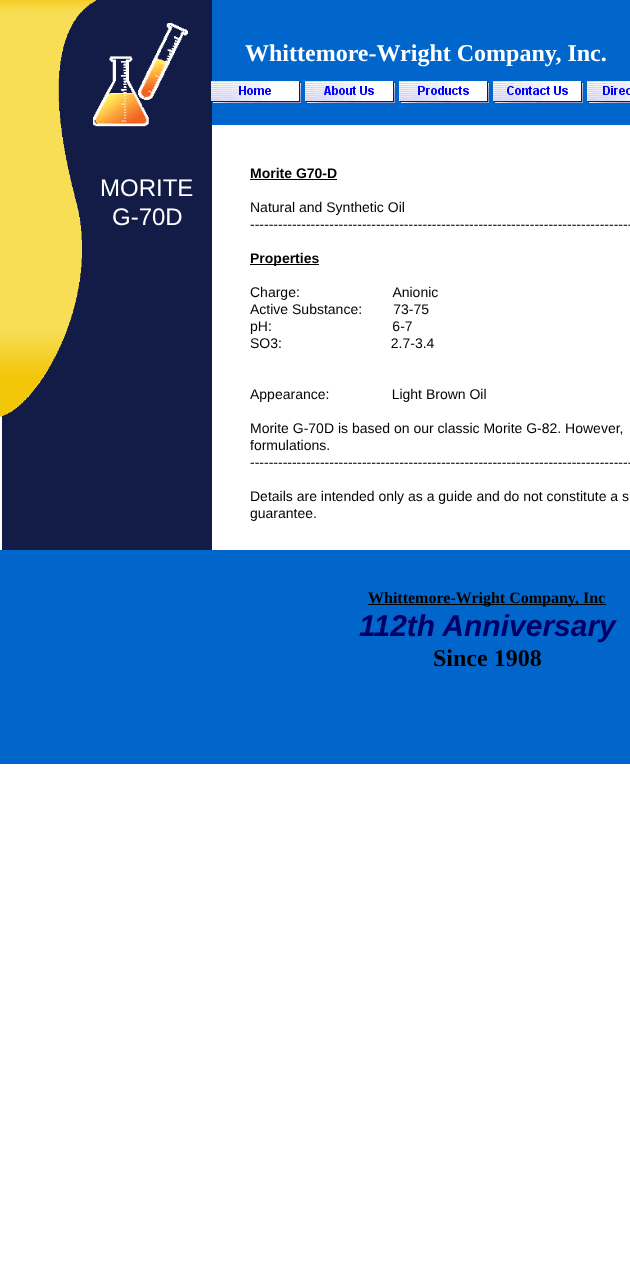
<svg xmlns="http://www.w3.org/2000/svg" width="630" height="1282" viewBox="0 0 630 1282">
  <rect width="100%" height="100%" fill="rgb(255,255,255)"/>
  <rect x="2" y="0" width="210" height="550" fill="rgb(19,28,70)"/>
  <image x="0" y="0" width="96" height="417" href="pic1.png"/>
  <rect x="212" y="0" width="418" height="125" fill="rgb(0,102,204)"/>
  <image x="93" y="23" width="95" height="104" href="pic2.png"/>
  <text x="245" y="61" font-family="Liberation Serif" font-size="24" font-weight="bold" fill="rgb(255,255,255)">Whittemore-Wright Company, Inc.</text>
  <image x="211" y="81" width="90" height="22" href="pic3.png"/>
  <image x="305" y="81" width="90" height="22" href="pic4.png"/>
  <image x="399" y="81" width="90" height="22" href="pic5.png"/>
  <image x="493" y="81" width="90" height="22" href="pic6.png"/>
  <image x="587" y="81" width="43" height="22" href="pic7.png"/>
  <g font-family="Liberation Sans" font-size="24" fill="rgb(255,255,255)">
    <text x="100" y="196">MORITE</text>
    <text x="112" y="225">G-70D</text>
  </g>
  <text x="250" y="178" font-family="Liberation Sans" font-size="14" font-weight="bold" fill="rgb(0,0,0)">Morite G70-D</text>
  <rect x="250" y="179" width="87" height="1" fill="rgb(0,0,0)"/>
  <g font-family="Liberation Sans" font-size="14" fill="rgb(0,0,0)">
    <text>
      <tspan x="250" y="212">Natural and Synthetic Oil</tspan>
      <tspan x="250" y="229">----------------------------------------------------------------------------------</tspan>
    </text>
  </g>
  <rect x="250" y="264" width="69" height="1" fill="rgb(0,0,0)"/>
  <text x="250" y="263" font-family="Liberation Sans" font-size="14" font-weight="bold" fill="rgb(0,0,0)">Properties</text>
  <g font-family="Liberation Sans" font-size="14" fill="rgb(0,0,0)">
    <text xml:space="preserve"><tspan x="250" y="297">Charge:                        Anionic</tspan><tspan x="250" y="314">Active Substance:        73-75</tspan><tspan x="250" y="331">pH:                               6-7</tspan><tspan x="250" y="348">SO3:                            2.7-3.4</tspan></text>
    <text x="250" y="399" xml:space="preserve">Appearance:                Light Brown Oil</text>
    <text>
      <tspan x="250" y="433">Morite G-70D is based on our classic Morite G-82. However,</tspan>
      <tspan x="250" y="450">formulations.</tspan>
      <tspan x="250" y="467">----------------------------------------------------------------------------------</tspan>
    </text>
    <text>
      <tspan x="250" y="501">Details are intended only as a guide and do not constitute a s</tspan>
      <tspan x="250" y="518">guarantee.</tspan>
    </text>
  </g>
  <rect x="0" y="550" width="630" height="214" fill="rgb(0,102,204)"/>
  <rect x="368" y="604" width="238" height="1" fill="rgb(0,0,0)"/>
  <text x="368" y="603" font-family="Liberation Serif" font-size="16" font-weight="bold" fill="rgb(0,0,0)">Whittemore-Wright Company, Inc</text>
  <text x="359" y="636" font-family="Liberation Sans" font-size="30" font-weight="bold" font-style="italic" fill="rgb(0,0,102)">112th Anniversary</text>
  <text x="433" y="666" font-family="Liberation Serif" font-size="24" font-weight="bold" fill="rgb(0,0,0)">Since 1908</text>
</svg>
